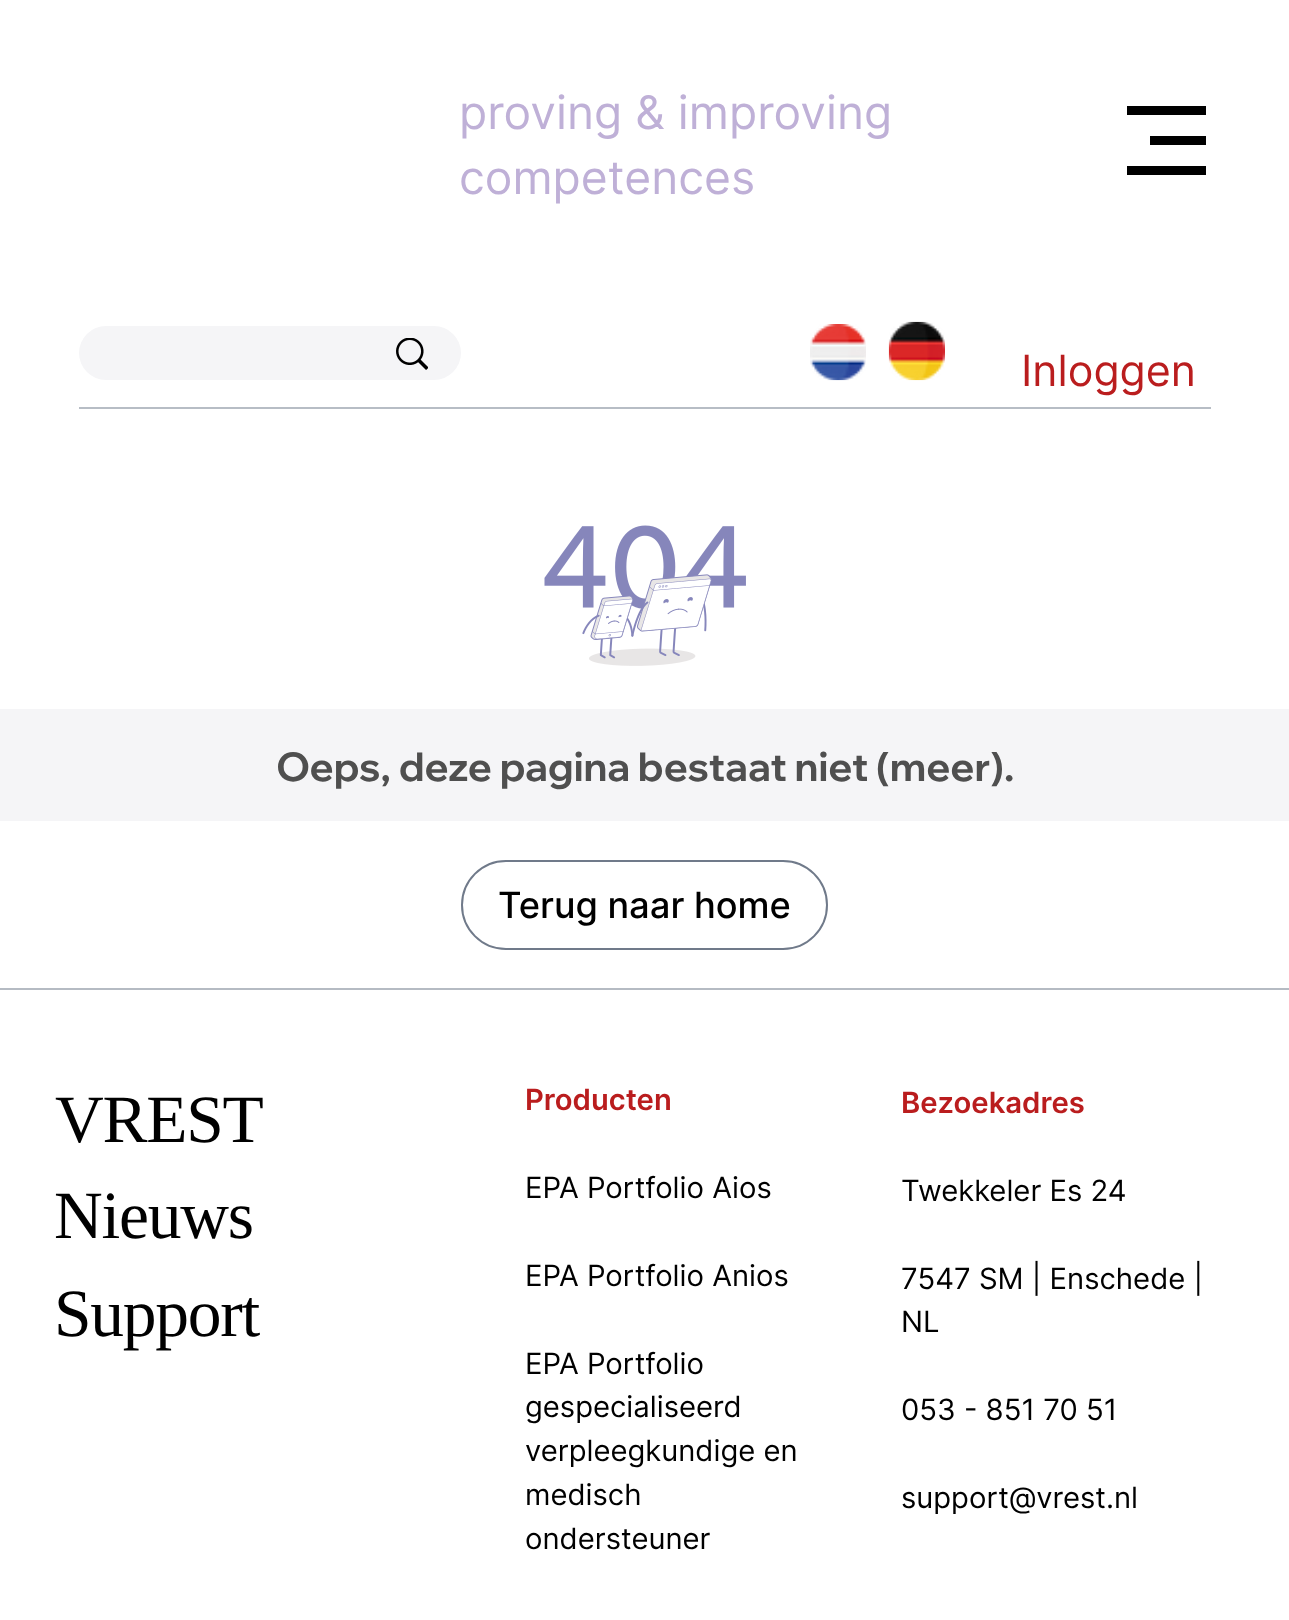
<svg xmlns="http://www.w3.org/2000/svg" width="1289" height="1620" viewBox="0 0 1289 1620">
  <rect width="100%" height="100%" fill="rgb(255,255,255)"/>
  <g font-family="Inter" font-size="46.25" fill="rgb(191,176,215)">
    <text>
      <tspan x="459" y="129">proving &amp; improving</tspan>
      <tspan x="459" y="194">competences</tspan>
    </text>
  </g>
  <rect x="1127" y="106" width="79" height="9" fill="rgb(0,0,0)"/>
  <rect x="1150" y="136" width="56" height="9" fill="rgb(0,0,0)"/>
  <rect x="1127" y="166" width="79" height="9" fill="rgb(0,0,0)"/>
  <rect x="79" y="326" width="382" height="54" rx="27" fill="rgb(245,245,247)"/>
  <image x="396" y="338" width="32" height="32" href="pic1.png"/>
  <image x="810" y="324" width="56" height="57" href="pic2.png"/>
  <image x="888" y="321" width="57" height="60" href="pic3.png"/>
  <text x="1021" y="386" font-family="Inter" font-size="43" fill="rgb(186,29,30)">Inloggen</text>
  <rect x="79" y="407" width="1132" height="2" fill="rgb(183,189,197)"/>
  <image x="544" y="525" width="202" height="141" href="pic4.png"/>
  <rect x="0" y="709" width="1289" height="112" fill="rgb(245,245,247)"/>
  <text x="276" y="781" font-family="Wix Madefor Display" font-size="39.7" font-weight="bold" fill="rgb(79,79,79)">Oeps, deze pagina bestaat niet (meer).</text>
  <rect x="462" y="861" width="365" height="88" rx="44" fill="none" stroke="rgb(112,122,138)" stroke-width="2"/>
  <text x="498" y="918" font-family="Inter" font-size="36.25" font-weight="500" fill="rgb(0,0,0)">Terug naar home</text>
  <rect x="0" y="988" width="1289" height="2" fill="rgb(181,187,195)"/>
  <g font-family="Liberation Serif" font-size="67.5" letter-spacing="-1.25" fill="rgb(0,0,0)">
    <text x="55" y="1142">VREST</text>
    <text>
      <tspan x="54" y="1238">Nieuws</tspan>
      <tspan x="54" y="1336">Support</tspan>
    </text>
  </g>
  <text x="525" y="1110" font-family="Inter" font-size="29.25" font-weight="600" fill="rgb(186,29,30)">Producten</text>
  <g font-family="Inter" font-size="29.25" fill="rgb(0,0,0)">
    <text x="525" y="1198">EPA Portfolio Aios</text>
    <text x="525" y="1286">EPA Portfolio Anios</text>
    <text>
      <tspan x="525" y="1374">EPA Portfolio</tspan>
      <tspan x="525" y="1417">gespecialiseerd</tspan>
      <tspan x="525" y="1461">verpleegkundige en</tspan>
      <tspan x="525" y="1505">medisch</tspan>
      <tspan x="525" y="1549">ondersteuner</tspan>
    </text>
  </g>
  <text x="901" y="1113" font-family="Inter" font-size="29.25" font-weight="600" fill="rgb(186,29,30)">Bezoekadres</text>
  <g font-family="Inter" font-size="29.25" fill="rgb(0,0,0)">
    <text x="901" y="1201">Twekkeler Es 24</text>
    <text>
      <tspan x="901" y="1289">7547 SM | Enschede |</tspan>
      <tspan x="901" y="1332">NL</tspan>
    </text>
    <text x="901" y="1420">053 - 851 70 51</text>
    <text x="901" y="1508">support@vrest.nl</text>
  </g>
</svg>
